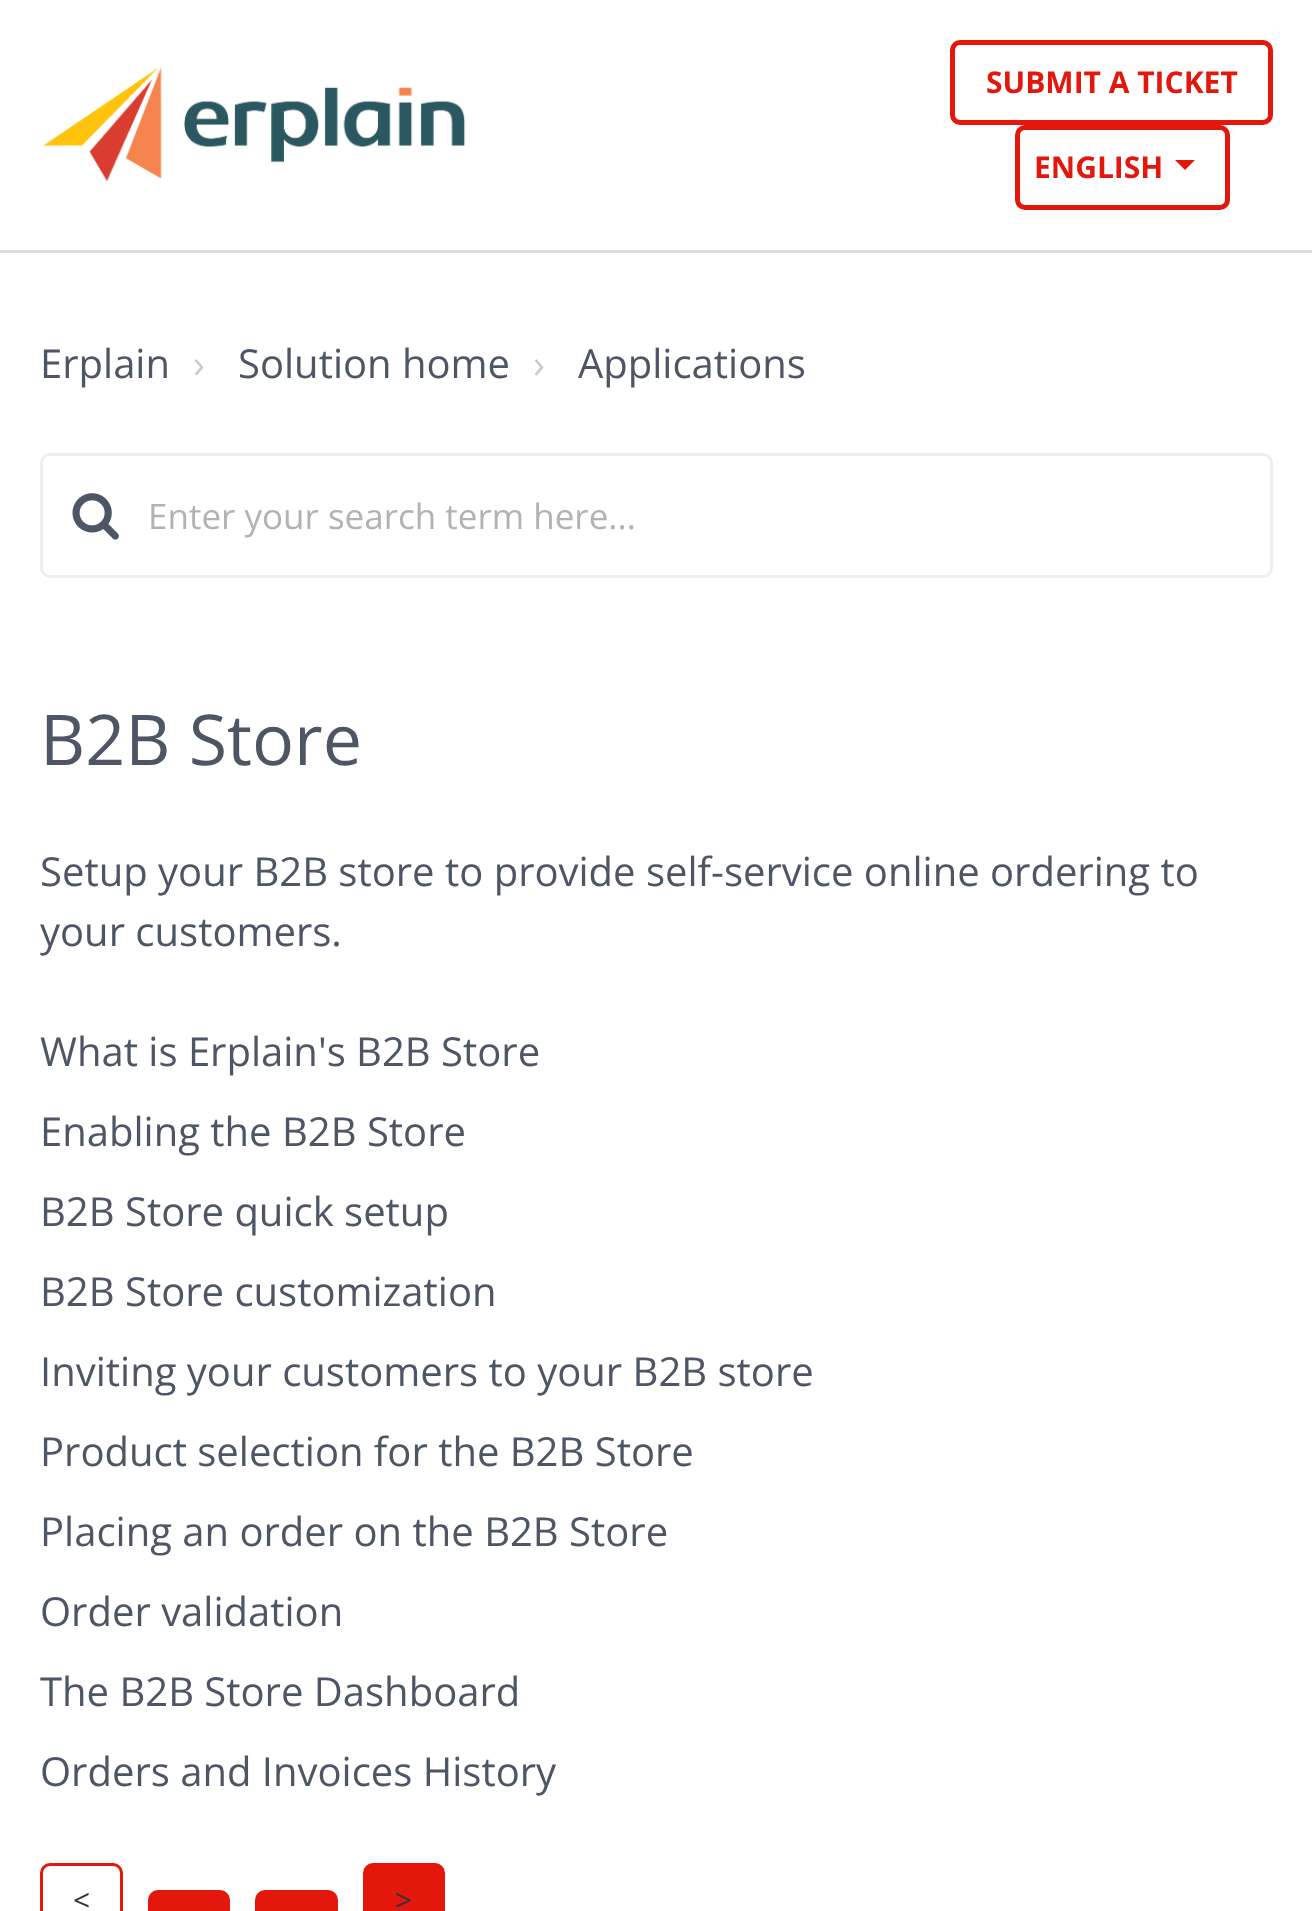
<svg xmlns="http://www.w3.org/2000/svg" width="1312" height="1911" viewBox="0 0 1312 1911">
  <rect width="100%" height="100%" fill="rgb(255,255,255)"/>
  <rect x="0" y="250" width="1312" height="3" fill="rgb(221,221,221)"/>
  <image x="43" y="67" width="423" height="115" href="pic1.png"/>
  <rect x="952.5" y="42.5" width="318" height="80" rx="7.5" fill="none" stroke="rgb(228,23,13)" stroke-width="5"/>
  <text x="986" y="93" font-family="Open Sans" font-size="30" font-weight="bold" fill="rgb(228,23,13)">SUBMIT A TICKET</text>
  <rect x="1017.5" y="127.5" width="210" height="80" rx="7.5" fill="none" stroke="rgb(228,23,13)" stroke-width="5"/>
  <text x="1034" y="178" font-family="Open Sans" font-size="30" font-weight="bold" fill="rgb(228,23,13)">ENGLISH</text>
  <path d="M1175 160H1195L1185 170Z" fill="rgb(228,23,13)"/>
  <text x="40" y="378" font-family="Open Sans" font-size="40" fill="rgb(78,85,101)">Erplain</text>
  <text x="193" y="378" font-family="Open Sans" font-size="40" fill="rgb(204,204,204)">›</text>
  <text x="238" y="378" font-family="Open Sans" font-size="40" fill="rgb(78,85,101)">Solution home</text>
  <text x="533" y="378" font-family="Open Sans" font-size="40" fill="rgb(204,204,204)">›</text>
  <text x="578" y="378" font-family="Open Sans" font-size="40" fill="rgb(78,85,101)">Applications</text>
  <rect x="41.5" y="454.5" width="1230" height="122" rx="8.5" fill="none" stroke="rgb(236,238,239)" stroke-width="3"/>
  <image x="72" y="493" width="47" height="47" href="pic2.png"/>
  <text x="148" y="529" font-family="Open Sans" font-size="35" fill="rgb(178,178,178)">Enter your search term here...</text>
  <text x="40" y="765" font-family="Open Sans" font-size="70" fill="rgb(78,85,101)">B2B Store</text>
  <g font-family="Open Sans" font-size="40" fill="rgb(78,85,101)">
    <text>
      <tspan x="40" y="886">Setup your B2B store to provide self-service online ordering to</tspan>
      <tspan x="40" y="946">your customers.</tspan>
    </text>
    <text x="40" y="1066">What is Erplain's B2B Store</text>
    <text x="40" y="1146">Enabling the B2B Store</text>
    <text x="40" y="1226">B2B Store quick setup</text>
    <text x="40" y="1306">B2B Store customization</text>
    <text x="40" y="1386">Inviting your customers to your B2B store</text>
    <text x="40" y="1466">Product selection for the B2B Store</text>
    <text x="40" y="1546">Placing an order on the B2B Store</text>
    <text x="40" y="1626">Order validation</text>
    <text x="40" y="1706">The B2B Store Dashboard</text>
    <text x="40" y="1786">Orders and Invoices History</text>
  </g>
  <rect x="41.5" y="1864.5" width="80" height="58" rx="8.5" fill="none" stroke="rgb(228,23,13)" stroke-width="3"/>
  <text x="73" y="1911" font-family="Open Sans" font-size="30" fill="rgb(51,51,51)">&lt;</text>
  <rect x="149.5" y="1891.5" width="79" height="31" rx="8.5" fill="rgb(228,23,13)" stroke="rgb(228,23,13)" stroke-width="3"/>
  <rect x="256.5" y="1891.5" width="80" height="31" rx="8.5" fill="rgb(228,23,13)" stroke="rgb(228,23,13)" stroke-width="3"/>
  <rect x="364.5" y="1864.5" width="79" height="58" rx="8.5" fill="rgb(228,23,13)" stroke="rgb(228,23,13)" stroke-width="3"/>
  <text x="395" y="1911" font-family="Open Sans" font-size="30" fill="rgb(51,51,51)">&gt;</text>
</svg>
